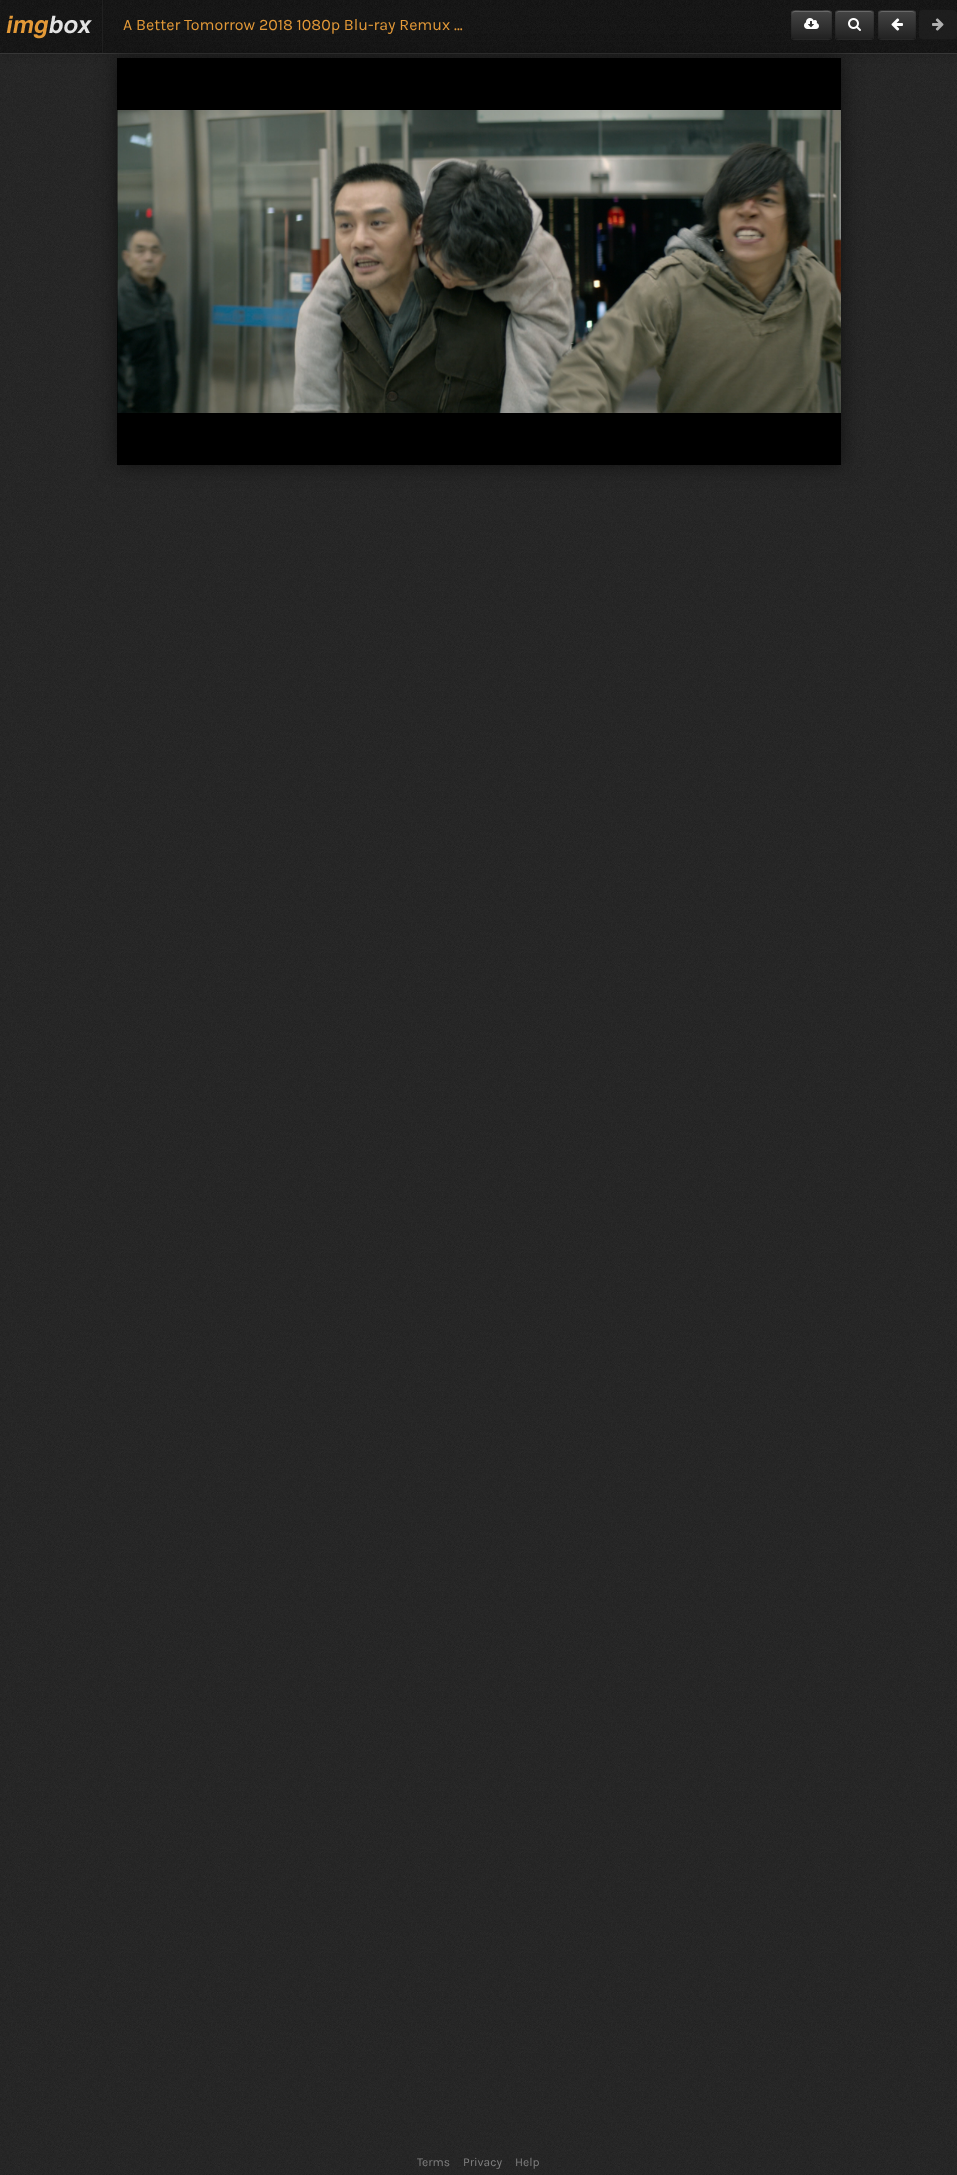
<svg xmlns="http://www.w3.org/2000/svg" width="957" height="2175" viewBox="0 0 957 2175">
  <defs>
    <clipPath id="clip1"><rect x="791" y="10" width="41" height="30" rx="4"/></clipPath>
    <linearGradient id="g1" gradientUnits="userSpaceOnUse" x1="812" y1="11" x2="812" y2="39"><stop offset="0" stop-color="rgb(68,68,68)"/><stop offset="1" stop-color="rgb(34,34,34)"/></linearGradient>
    <clipPath id="clip2"><rect x="835" y="10" width="39" height="30" rx="4"/></clipPath>
    <linearGradient id="g2" gradientUnits="userSpaceOnUse" x1="855" y1="11" x2="855" y2="39"><stop offset="0" stop-color="rgb(68,68,68)"/><stop offset="1" stop-color="rgb(34,34,34)"/></linearGradient>
    <clipPath id="clip3"><rect x="878" y="10" width="38" height="30" rx="4"/></clipPath>
    <linearGradient id="g3" gradientUnits="userSpaceOnUse" x1="897" y1="11" x2="897" y2="39"><stop offset="0" stop-color="rgb(68,68,68)"/><stop offset="1" stop-color="rgb(34,34,34)"/></linearGradient>
  </defs>
  <rect width="100%" height="100%" fill="rgb(255,255,255)"/>
  <image x="0" y="54" width="957" height="2121" href="pic1.png"/>
  <rect x="0" y="1" width="957" height="54" fill="rgba(0,0,0,0.1)" filter="blur(5px)"/>
  <image x="0" y="0" width="957" height="53" href="pic2.png"/>
  <rect x="0" y="53" width="957" height="1" fill="rgb(55,55,55)"/>
  <image x="6" y="15" width="86" height="24" href="pic3.png"/>
  <rect x="102" y="0" width="1" height="53" fill="rgb(32,32,32)"/>
  <text x="123" y="30" font-family="Karla" font-size="16" fill="rgb(227,153,56)">A Better Tomorrow 2018 1080p Blu-ray Remux …</text>
  <rect x="791" y="10" width="41" height="30" rx="4" fill="rgb(54,54,54)"/>
  <g clip-path="url(#clip1)">
    <rect x="791" y="11" width="41" height="28" fill="url(#g1)"/>
  </g>
  <path d="M795 12H828C830 12 831 13 831 15C831 9.5 827 11 822.5 11H800.5C796 11 792 9.5 792 15C792 13 793 12 795 12Z" fill="rgb(105,105,105)"/>
  <path d="M830.5 38.5C830 39 829 39.5 828 39.5H795C794 39.5 793 39 792.5 38.5" fill="none" stroke="rgba(0,0,0,0.25)"/>
  <path d="M792.5 38.5C790.5 36.5 791.5 28 791.5 25C791.5 6 790 10.5 811.5 10.5C833 10.5 831.5 6 831.5 25C831.5 28 832.5 36.5 830.5 38.5" fill="none" stroke="rgba(0,0,0,0.1)"/>
  <image x="804" y="18" width="15" height="11" href="pic4.png"/>
  <rect x="835" y="10" width="39" height="30" rx="4" fill="rgb(54,54,54)"/>
  <g clip-path="url(#clip2)">
    <rect x="835" y="11" width="39" height="28" fill="url(#g2)"/>
  </g>
  <path d="M839 12H870C872 12 873 13 873 15C873 10 869 11 865 11H844C840 11 836 10 836 15C836 13 837 12 839 12Z" fill="rgb(105,105,105)"/>
  <path d="M872.5 38.5C872 39 871 39.5 870 39.5H839C838 39.5 837 39 836.5 38.5" fill="none" stroke="rgba(0,0,0,0.25)"/>
  <path d="M836.5 38.5C836 38 835.5 37 835.5 36V14C835.5 13 836 12 836.5 11.5C837 11 838 10.5 839 10.5H870C871 10.5 872 11 872.5 11.5C873 12 873.5 13 873.5 14V36C873.5 37 873 38 872.5 38.5" fill="none" stroke="rgba(0,0,0,0.1)"/>
  <image x="848" y="18" width="13" height="13" href="pic5.png"/>
  <rect x="878" y="10" width="38" height="30" rx="4" fill="rgb(54,54,54)"/>
  <g clip-path="url(#clip3)">
    <rect x="878" y="11" width="38" height="28" fill="url(#g3)"/>
  </g>
  <path d="M882 12H912C914 12 915 13 915 15C915 10 911 11 907 11H887C883 11 879 10 879 15C879 13 880 12 882 12Z" fill="rgb(105,105,105)"/>
  <path d="M914.5 38.5C914 39 913 39.5 912 39.5H882C881 39.5 880 39 879.5 38.5" fill="none" stroke="rgba(0,0,0,0.25)"/>
  <path d="M879.5 38.5C879 38 878.5 37 878.5 36V14C878.5 13 879 12 879.5 11.5C880 11 881 10.5 882 10.5H912C913 10.5 914 11 914.5 11.5C915 12 915.5 13 915.5 14V36C915.5 37 915 38 914.5 38.5" fill="none" stroke="rgba(0,0,0,0.1)"/>
  <image x="891" y="18" width="12" height="13" href="pic6.png"/>
  <rect x="919" y="10" width="38" height="30" rx="4" fill="rgba(34,34,34,0.65)"/>
  <path d="M955.5 38.5C955 39 954 39.5 953 39.5H923C922 39.5 921 39 920.5 38.5" fill="none" stroke="rgba(0,0,0,0.16)"/>
  <image x="932" y="18" width="12" height="13" href="pic7.png"/>
  <rect x="117" y="58" width="724" height="407" fill="rgb(17,17,17)" filter="blur(10px)"/>
  <image x="117" y="58" width="724" height="407" href="pic8.png"/>
  <g font-family="Karla" font-size="12" fill="rgb(128,128,128)">
    <text x="417" y="2166">Terms</text>
    <text x="463" y="2166">Privacy</text>
    <text x="515" y="2166">Help</text>
  </g>
</svg>
